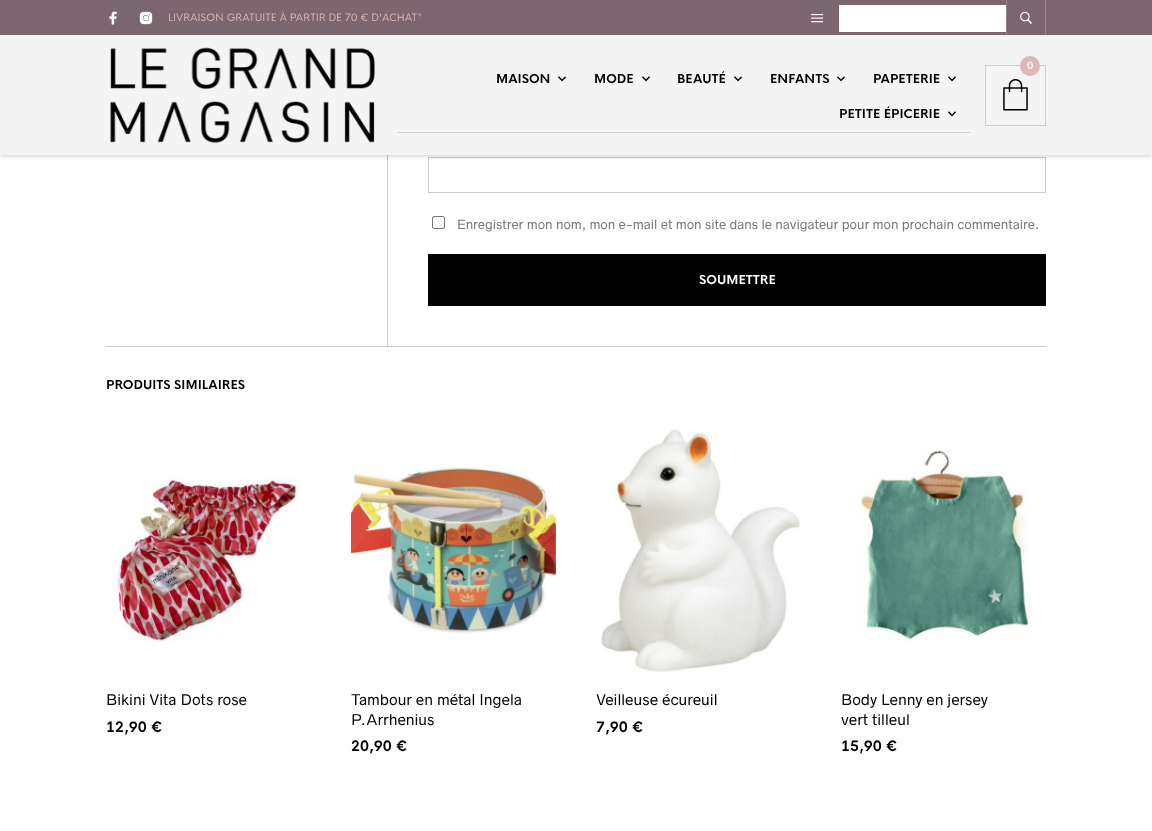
<svg xmlns="http://www.w3.org/2000/svg" width="1152" height="831" viewBox="0 0 1152 831">
  <rect width="100%" height="100%" fill="rgb(255,255,255)"/>
  <rect x="387" y="155" width="1" height="191" fill="rgb(204,204,204)"/>
  <rect x="428.5" y="157.5" width="617" height="35" fill="none" stroke="rgb(204,204,204)"/>
  <rect x="0" y="1" width="1152" height="155" fill="rgba(0,0,0,0.2)" filter="blur(2.5px)"/>
  <rect x="0" y="35" width="1152" height="120" fill="rgb(244,244,244)"/>
  <rect x="0" y="0" width="1152" height="35" fill="rgb(124,102,111)"/>
  <image x="109" y="11" width="8" height="14" href="pic1.png"/>
  <image x="139" y="11" width="14" height="14" href="pic2.png"/>
  <text x="168" y="21" font-family="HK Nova" font-size="10" fill="rgb(221,182,183)">LIVRAISON GRATUITE À PARTIR DE 70 € D'ACHAT*</text>
  <image x="811" y="13" width="13" height="10" href="pic3.png"/>
  <rect x="839" y="5" width="167" height="27" fill="rgb(255,255,255)"/>
  <rect x="1045" y="0" width="1" height="35" fill="rgb(150,133,140)"/>
  <rect x="1006" y="0" width="1" height="35" fill="rgb(150,133,140)"/>
  <image x="1020" y="11" width="12" height="13" href="pic4.png"/>
  <image x="110" y="47" width="265" height="97" href="pic5.png"/>
  <image x="1003" y="79" width="25" height="32" href="pic6.png"/>
  <rect x="985.5" y="65.5" width="60" height="60" fill="none" stroke="rgb(207,207,207)"/>
  <circle cx="1030" cy="66" r="10" fill="rgb(221,182,183)"/>
  <text x="1027" y="69" font-family="HK Nova" font-size="10" font-weight="bold" fill="rgb(244,244,244)">0</text>
  <rect x="398" y="132" width="572" height="1" fill="rgb(207,207,207)"/>
  <image x="558" y="76" width="8" height="6" href="pic7.png"/>
  <text x="496" y="83" font-family="HK Nova" font-size="12" font-weight="bold" fill="rgb(0,0,0)">MAISON</text>
  <image x="642" y="76" width="8" height="6" href="pic7.png"/>
  <text x="594" y="83" font-family="HK Nova" font-size="12" font-weight="bold" fill="rgb(0,0,0)">MODE</text>
  <image x="734" y="76" width="8" height="6" href="pic7.png"/>
  <text x="677" y="83" font-family="HK Nova" font-size="12" font-weight="bold" fill="rgb(0,0,0)">BEAUTÉ</text>
  <image x="837" y="76" width="8" height="6" href="pic7.png"/>
  <text x="770" y="83" font-family="HK Nova" font-size="12" font-weight="bold" fill="rgb(0,0,0)">ENFANTS</text>
  <image x="948" y="76" width="8" height="6" href="pic7.png"/>
  <text x="873" y="83" font-family="HK Nova" font-size="12" font-weight="bold" fill="rgb(0,0,0)">PAPETERIE</text>
  <image x="948" y="111" width="8" height="6" href="pic7.png"/>
  <text x="839" y="118" font-family="HK Nova" font-size="12" font-weight="bold" fill="rgb(0,0,0)">PETITE ÉPICERIE</text>
  <rect x="106" y="346" width="940" height="1" fill="rgb(204,204,204)"/>
  <rect x="432.5" y="216.5" width="12" height="12" rx="1.5" fill="none" stroke="rgb(118,118,118)"/>
  <text x="457" y="229" font-family="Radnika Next" font-size="12" fill="rgb(119,119,119)">Enregistrer mon nom, mon e-mail et mon site dans le navigateur pour mon prochain commentaire.</text>
  <rect x="428" y="254" width="618" height="52" fill="rgb(0,0,0)"/>
  <text x="699" y="284" font-family="HK Nova" font-size="12" font-weight="bold" fill="rgb(255,255,255)">SOUMETTRE</text>
  <text x="106" y="389" font-family="HK Nova" font-size="12" font-weight="bold" fill="rgb(0,0,0)">PRODUITS SIMILAIRES</text>
  <image x="113" y="476" width="188" height="167" href="pic8.png"/>
  <text x="106" y="705" font-family="Radnika Next" font-size="14" fill="rgb(0,0,0)">Bikini Vita Dots rose</text>
  <text x="106" y="732" font-family="HK Nova" font-size="14" font-weight="bold" fill="rgb(0,0,0)">12,90 €</text>
  <image x="351" y="464" width="205" height="170" href="pic9.png"/>
  <g font-family="Radnika Next" font-size="14" fill="rgb(0,0,0)">
    <text>
      <tspan x="351" y="705">Tambour en métal Ingela</tspan>
      <tspan x="351" y="725">P.Arrhenius</tspan>
    </text>
  </g>
  <text x="351" y="751" font-family="HK Nova" font-size="14" font-weight="bold" fill="rgb(0,0,0)">20,90 €</text>
  <image x="601" y="429" width="200" height="244" href="pic10.png"/>
  <text x="596" y="705" font-family="Radnika Next" font-size="14" fill="rgb(0,0,0)">Veilleuse écureuil</text>
  <text x="596" y="732" font-family="HK Nova" font-size="14" font-weight="bold" fill="rgb(0,0,0)">7,90 €</text>
  <image x="856" y="449" width="174" height="193" href="pic11.png"/>
  <g font-family="Radnika Next" font-size="14" fill="rgb(0,0,0)">
    <text>
      <tspan x="841" y="705">Body Lenny en jersey</tspan>
      <tspan x="841" y="725">vert tilleul</tspan>
    </text>
  </g>
  <text x="841" y="751" font-family="HK Nova" font-size="14" font-weight="bold" fill="rgb(0,0,0)">15,90 €</text>
</svg>
